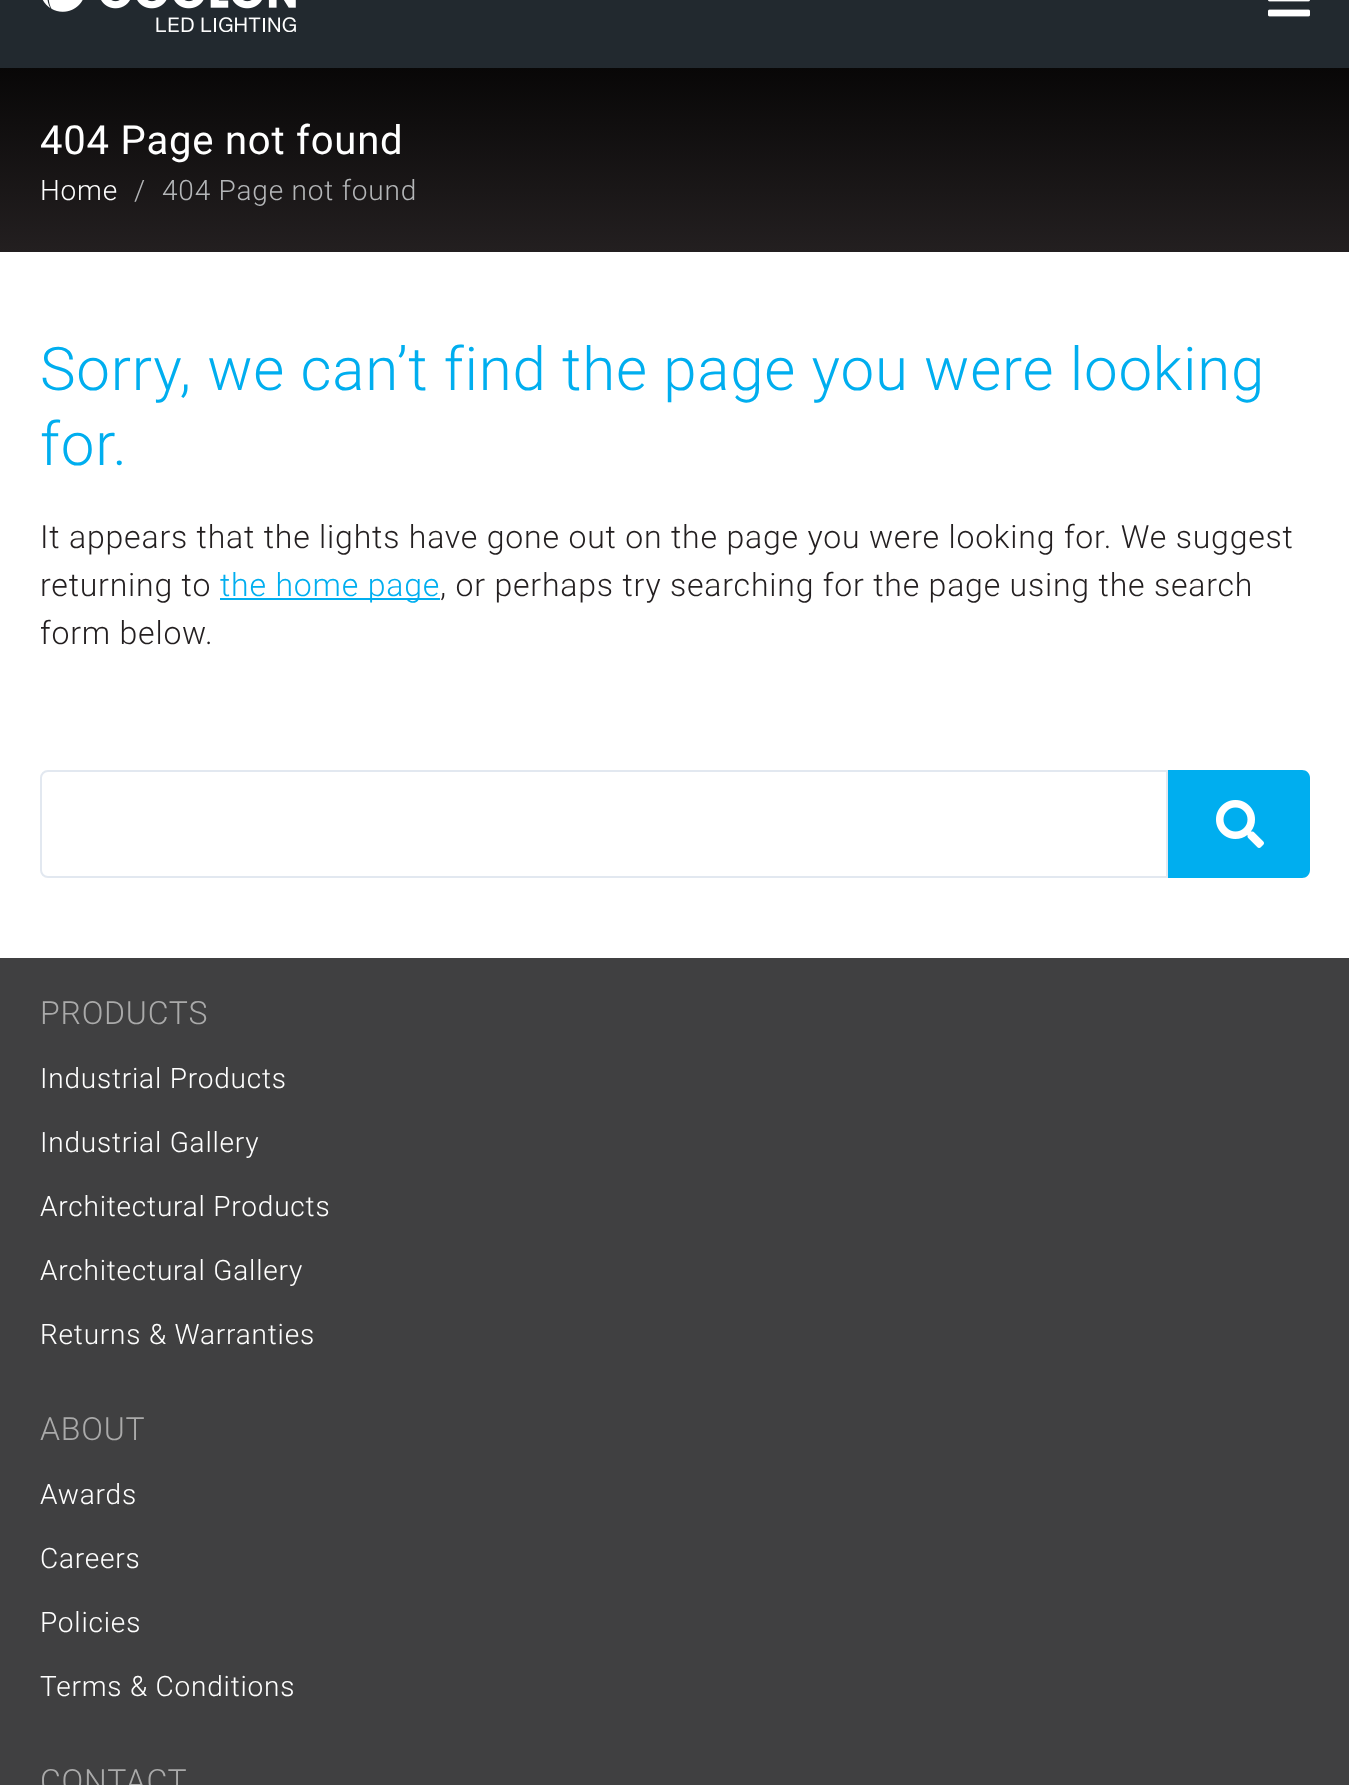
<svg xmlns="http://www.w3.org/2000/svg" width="1349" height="1785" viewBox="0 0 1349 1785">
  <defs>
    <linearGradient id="g1" gradientUnits="userSpaceOnUse" x1="675" y1="-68" x2="675" y2="252"><stop offset="0" stop-color="rgb(7,6,6)"/><stop offset="0.4" stop-color="rgb(7,6,6)"/><stop offset="1" stop-color="rgb(35,31,32)"/></linearGradient>
  </defs>
  <rect width="100%" height="100%" fill="rgb(255,255,255)"/>
  <rect x="0" y="0" width="1349" height="68" fill="rgb(34,41,47)"/>
  <image x="42" y="0" width="254" height="32" href="pic1.png"/>
  <image x="1268" y="0" width="42" height="17" href="pic2.png"/>
  <rect x="0" y="68" width="1349" height="184" fill="url(#g1)"/>
  <text x="40" y="154" font-family="Roboto" font-size="40" letter-spacing="0.8" fill="rgb(255,255,255)">404 Page not found</text>
  <text x="40" y="200" font-family="Roboto" font-size="28" font-weight="300" letter-spacing="0.8" fill="rgb(255,255,255)">Home</text>
  <g font-family="Roboto" font-size="28" font-weight="300" letter-spacing="0.8" fill="rgb(180,182,184)">
    <text x="134" y="200">/</text>
    <text x="162" y="200">404 Page not found</text>
  </g>
  <g font-family="Roboto" font-size="60" font-weight="300" letter-spacing="0.8" fill="rgb(0,174,239)">
    <text>
      <tspan x="40" y="390">Sorry, we can’t find the page you were looking</tspan>
      <tspan x="40" y="465">for.</tspan>
    </text>
  </g>
  <g font-family="Roboto" font-size="32" font-weight="300" letter-spacing="0.8" fill="rgb(35,31,32)">
    <text>
      <tspan x="40" y="548">It appears that the lights have gone out on the page you were looking for. We suggest</tspan>
      <tspan x="40" y="596">returning to</tspan>
    </text>
  </g>
  <rect x="220" y="598" width="220" height="2" fill="rgb(0,174,239)"/>
  <text x="220" y="596" font-family="Roboto" font-size="32" font-weight="300" letter-spacing="0.8" fill="rgb(0,174,239)">the home page</text>
  <g font-family="Roboto" font-size="32" font-weight="300" letter-spacing="0.8" fill="rgb(35,31,32)">
    <text x="440" y="596">, or perhaps try searching for the page using the search</text>
    <text x="40" y="644">form below.</text>
  </g>
  <path d="M48 771H1167V877H48C44 877 41 874 41 870V778C41 774 44 771 48 771Z" fill="none" stroke="rgb(226,232,240)" stroke-width="2"/>
  <path d="M1168 770H1302C1306.5 770 1310 773.5 1310 778V870C1310 874.5 1306.5 878 1302 878H1168Z" fill="rgb(0,174,239)"/>
  <image x="1216" y="800" width="48" height="48" href="pic3.png"/>
  <rect x="0" y="958" width="1349" height="827" fill="rgb(64,64,65)"/>
  <text x="40" y="1024" font-family="Roboto" font-size="32" font-weight="300" letter-spacing="0.8" fill="rgb(170,170,170)">PRODUCTS</text>
  <g font-family="Roboto" font-size="28" font-weight="300" letter-spacing="0.8" fill="rgb(255,255,255)">
    <text x="40" y="1088">Industrial Products</text>
    <text x="40" y="1152">Industrial Gallery</text>
    <text x="40" y="1216">Architectural Products</text>
    <text x="40" y="1280">Architectural Gallery</text>
    <text x="40" y="1344">Returns &amp; Warranties</text>
  </g>
  <text x="40" y="1440" font-family="Roboto" font-size="32" font-weight="300" letter-spacing="0.8" fill="rgb(170,170,170)">ABOUT</text>
  <g font-family="Roboto" font-size="28" font-weight="300" letter-spacing="0.8" fill="rgb(255,255,255)">
    <text x="40" y="1504">Awards</text>
    <text x="40" y="1568">Careers</text>
    <text x="40" y="1632">Policies</text>
    <text x="40" y="1696">Terms &amp; Conditions</text>
  </g>
  <text x="40" y="1792" font-family="Roboto" font-size="32" font-weight="300" letter-spacing="0.8" fill="rgb(170,170,170)">CONTACT</text>
</svg>
